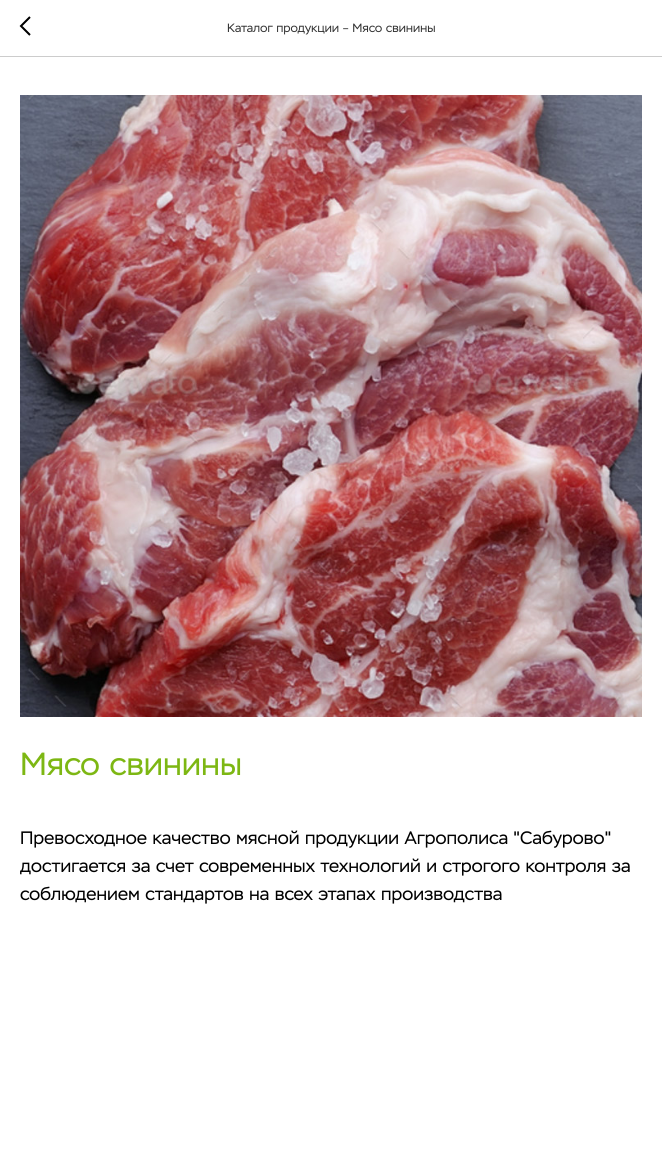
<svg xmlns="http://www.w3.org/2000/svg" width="662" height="1155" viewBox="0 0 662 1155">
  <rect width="100%" height="100%" fill="rgb(255,255,255)"/>
  <rect x="0" y="56" width="662" height="1" fill="rgb(204,204,204)"/>
  <path d="M30 35L21 26L30 17" fill="none" stroke="rgb(0,0,0)" stroke-width="2"/>
  <image x="227" y="23" width="208" height="12" href="pic1.png"/>
  <image x="20" y="95" width="622" height="622" href="pic2.png"/>
  <image x="22" y="752" width="219" height="24" href="pic3.png"/>
  <image x="21" y="830" width="590" height="18" href="pic4.png"/>
  <image x="20" y="858" width="610" height="18" href="pic5.png"/>
  <image x="20" y="886" width="482" height="18" href="pic6.png"/>
</svg>
